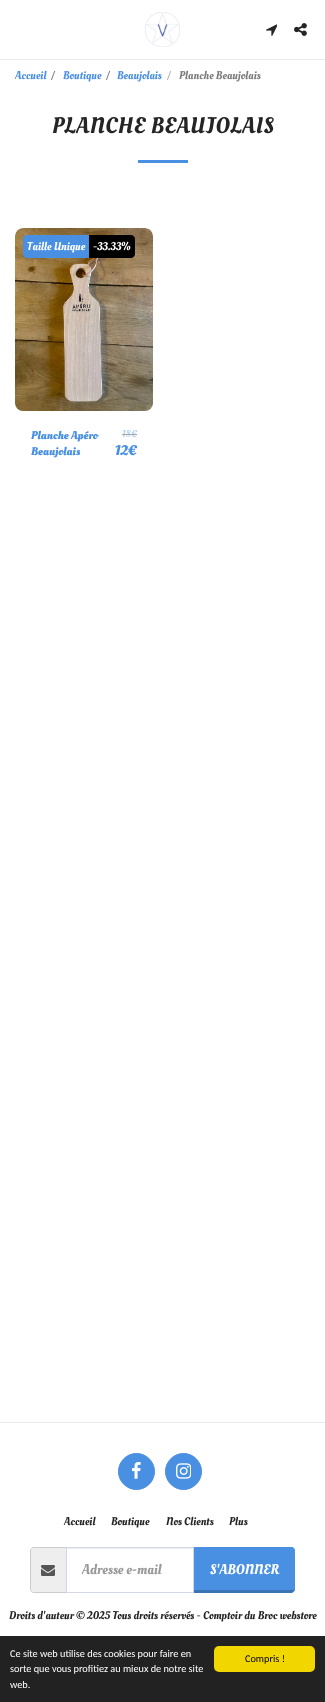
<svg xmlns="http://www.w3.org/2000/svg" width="325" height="1702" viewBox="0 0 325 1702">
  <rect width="100%" height="100%" fill="rgb(255,255,255)"/>
  <rect x="0" y="59" width="325" height="1" fill="rgb(235,235,235)"/>
  <image x="145" y="12" width="35" height="35" href="pic1.png"/>
  <image x="266" y="24" width="11" height="12" href="pic2.png"/>
  <image x="294" y="23" width="13" height="13" href="pic3.png"/>
  <text x="15" y="79" font-family="Oleo Script" font-size="11.2" fill="rgb(74,144,226)">Accueil</text>
  <text x="51" y="79" font-family="Oleo Script" font-size="11.2" fill="rgb(124,124,124)">/</text>
  <text x="63" y="79" font-family="Oleo Script" font-size="11.2" fill="rgb(74,144,226)">Boutique</text>
  <text x="106" y="79" font-family="Oleo Script" font-size="11.2" fill="rgb(124,124,124)">/</text>
  <text x="117" y="79" font-family="Oleo Script" font-size="11.2" fill="rgb(74,144,226)">Beaujolais</text>
  <text x="167" y="79" font-family="Oleo Script" font-size="11.2" fill="rgb(177,177,177)">/</text>
  <text x="179" y="79" font-family="Oleo Script" font-size="11.2" fill="rgb(124,124,124)">Planche Beaujolais</text>
  <text x="52" y="133" font-family="Oleo Script" font-size="22.5" letter-spacing="0.5" fill="rgb(37,37,37)">PLANCHE BEAUJOLAIS</text>
  <rect x="138" y="160" width="50" height="3" fill="rgb(74,144,226)"/>
  <image x="15" y="228" width="138" height="183" href="pic4.png"/>
  <path d="M27 235H89V258H27C25 258 23 256 23 254V239C23 237 25 235 27 235Z" fill="rgb(74,144,226)"/>
  <text x="27" y="250" font-family="Oleo Script" font-size="11.2" fill="rgb(255,255,255)">Taille Unique</text>
  <path d="M89 235H131C133 235 135 237 135 239V254C135 256 133 258 131 258H89Z" fill="rgb(0,0,0)"/>
  <text x="93" y="250" font-family="Oleo Script" font-size="11.2" fill="rgb(255,255,255)">-33.33%</text>
  <g font-family="Oleo Script" font-size="11.2" font-weight="bold" fill="rgb(74,144,226)">
    <text>
      <tspan x="31" y="439">Planche Apéro</tspan>
      <tspan x="31" y="455">Beaujolais</tspan>
    </text>
  </g>
  <text x="122" y="437" font-family="Oleo Script" font-size="10" fill="rgb(183,211,243)">18</text>
  <rect x="122" y="434" width="9" height="1" fill="rgb(168,168,168)"/>
  <text x="131" y="437" font-family="Oleo Script" font-size="10" fill="rgb(183,211,243)">€</text>
  <rect x="131" y="434" width="6" height="1" fill="rgb(168,168,168)"/>
  <text x="115" y="455" font-family="Oleo Script" font-size="14" font-weight="bold" fill="rgb(74,144,226)">12€</text>
  <rect x="0" y="1422" width="325" height="1" fill="rgb(235,235,235)"/>
  <circle cx="136.5" cy="1471.5" r="18" fill="rgb(74,144,226)" stroke="rgb(74,144,226)"/>
  <image x="131" y="1462" width="10" height="17" href="pic5.png"/>
  <circle cx="183.5" cy="1471.5" r="18" fill="rgb(74,144,226)" stroke="rgb(74,144,226)"/>
  <image x="176" y="1463" width="15" height="16" href="pic6.png"/>
  <g font-family="Oleo Script" font-size="11.2" fill="rgb(37,37,37)">
    <text x="64" y="1525">Accueil</text>
    <text x="111" y="1525">Boutique</text>
    <text x="166" y="1525">Nos Clients</text>
    <text x="229" y="1525">Plus</text>
  </g>
  <path d="M34 1548H66V1592H34C32.5 1592 31 1590.5 31 1589V1551C31 1549.5 32.5 1548 34 1548Z" fill="rgb(238,238,238)"/>
  <path d="M34 1547H66V1593H34C32 1593 30 1591 30 1589V1551C30 1549 32 1547 34 1547ZM34 1548H66V1592H34C32 1592 31 1591 31 1589V1551C31 1549 32 1548 34 1548Z" fill="rgb(204,204,204)" fill-rule="evenodd"/>
  <image x="41" y="1565" width="14" height="11" href="pic7.png"/>
  <rect x="67" y="1548" width="126" height="1" fill="rgb(236,236,236)"/>
  <path d="M193 1547H291C293 1547 295 1549 295 1551V1589C295 1591 293 1593 291 1593H193Z" fill="rgb(74,144,226)"/>
  <path d="M193 1547L194 1548H292L293 1549L294 1548L292 1547Z" fill="rgb(74,144,226)"/>
  <path d="M295 1590V1550L294 1548L293 1549C296 1551 292 1585 294 1591Z" fill="rgb(74,144,226)"/>
  <path d="M292 1593L294 1591V1590H194L193 1593Z" fill="rgba(0,0,0,0.2)"/>
  <rect x="66.5" y="1547.5" width="127" height="45" fill="none" stroke="rgb(212,215,229)"/>
  <text x="82" y="1574" font-family="Oleo Script" font-size="14" fill="rgb(153,153,153)">Adresse e-mail</text>
  <text x="210" y="1574" font-family="Oleo Script" font-size="14" fill="rgb(255,255,255)">S'ABONNER</text>
  <text x="9" y="1619" font-family="Oleo Script" font-size="11.2" fill="rgb(37,37,37)">Droits d'auteur © 2025 Tous droits réservés - Comptoir du Broc webstore</text>
  <rect x="0" y="1636" width="325" height="66" fill="rgb(34,34,34)"/>
  <g font-family="Carlito" font-size="10.25" fill="rgb(255,255,255)">
    <text>
      <tspan x="10" y="1657">Ce site web utilise des cookies pour faire en</tspan>
      <tspan x="10" y="1672">sorte que vous profitiez au mieux de notre site</tspan>
      <tspan x="10" y="1688">web.</tspan>
    </text>
  </g>
  <rect x="214" y="1646" width="101" height="26" rx="5" fill="rgb(241,214,0)"/>
  <text x="245" y="1662" font-family="Carlito" font-size="10.25" fill="rgb(0,0,0)">Compris !</text>
</svg>
